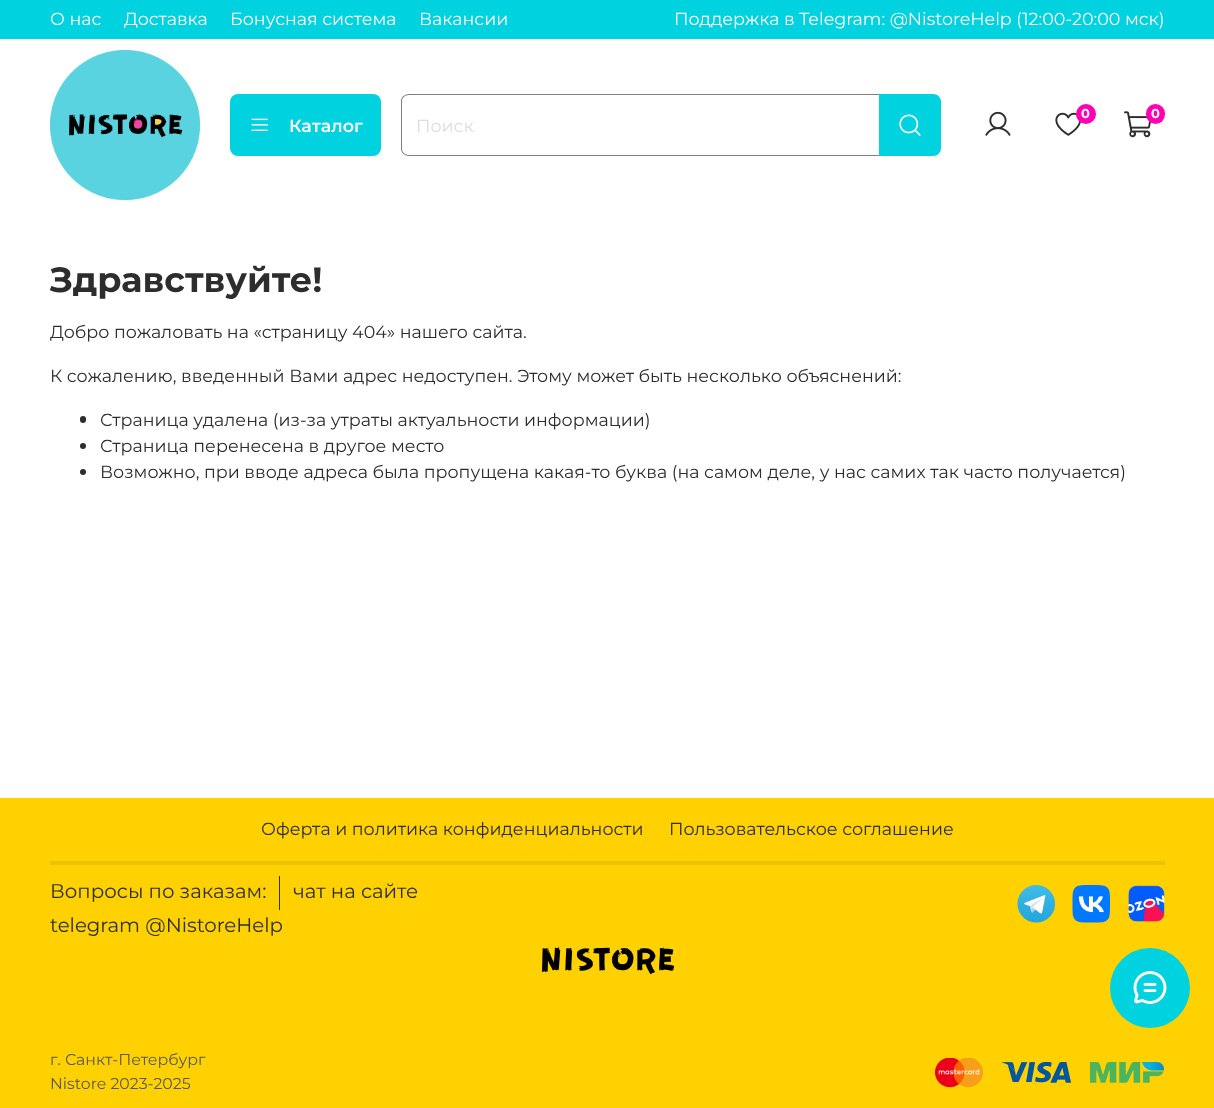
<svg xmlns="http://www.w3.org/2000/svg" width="1214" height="1108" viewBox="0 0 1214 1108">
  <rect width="100%" height="100%" fill="rgb(255,255,255)"/>
  <rect x="0" y="0" width="1214" height="39" fill="rgb(0,210,223)"/>
  <g font-family="Montserrat" font-size="17.5" fill="rgb(255,255,255)">
    <text x="50" y="25">О нас</text>
    <text x="124" y="25">Доставка</text>
    <text x="230" y="25">Бонусная система</text>
    <text x="419" y="25">Вакансии</text>
    <text x="674" y="25">Поддержка в Telegram: @NistoreHelp (12:00-20:00 мск)</text>
  </g>
  <image x="50" y="50" width="150" height="150" href="pic1.png"/>
  <image x="985" y="111" width="26" height="25" href="pic2.png"/>
  <image x="1055" y="112" width="26" height="24" href="pic3.png"/>
  <circle cx="1086" cy="114" r="10" fill="rgb(255,0,180)"/>
  <text x="1081" y="118" font-family="Montserrat" font-size="13" font-weight="bold" fill="rgb(255,255,255)">0</text>
  <image x="1124" y="111" width="27" height="27" href="pic4.png"/>
  <rect x="1146" y="104" width="19" height="20" rx="9.5" fill="rgb(255,0,180)"/>
  <text x="1151" y="118" font-family="Montserrat" font-size="13" font-weight="bold" fill="rgb(255,255,255)">0</text>
  <rect x="230" y="94" width="151" height="62" rx="8" fill="rgb(0,210,223)"/>
  <image x="251" y="118" width="17" height="13" href="pic5.png"/>
  <text x="289" y="132" font-family="Montserrat" font-size="17.5" font-weight="600" fill="rgb(255,255,255)">Каталог</text>
  <path d="M409 94H879V156H409C405 156 401 153 401 149V101C401 97 405 94 409 94ZM409 95H879V155H409C405 155 402 152 402 149V101C402 98 405 95 409 95Z" fill="rgb(128,128,128)" fill-rule="evenodd"/>
  <text x="416" y="132" font-family="Montserrat" font-size="17.5" fill="rgb(221,221,221)">Поиск</text>
  <path d="M879 94H933C937.5 94 941 97.5 941 102V148C941 152.5 937.5 156 933 156H879Z" fill="rgb(0,210,223)"/>
  <image x="899" y="114" width="22" height="22" href="pic6.png"/>
  <text x="50" y="292" font-family="Montserrat" font-size="35" font-weight="bold" fill="rgb(45,45,45)">Здравствуйте!</text>
  <g font-family="Montserrat" font-size="17.5" fill="rgb(45,45,45)">
    <text x="50" y="338">Добро пожаловать на «страницу 404» нашего сайта.</text>
    <text x="50" y="382">К сожалению, введенный Вами адрес недоступен. Этому может быть несколько объяснений:</text>
  </g>
  <rect x="80" y="416" width="6" height="7" rx="3" fill="rgb(45,45,45)"/>
  <text x="100" y="426" font-family="Montserrat" font-size="17.5" fill="rgb(45,45,45)">Страница удалена (из-за утраты актуальности информации)</text>
  <circle cx="83" cy="446" r="3" fill="rgb(45,45,45)"/>
  <text x="100" y="452" font-family="Montserrat" font-size="17.5" fill="rgb(45,45,45)">Страница перенесена в другое место</text>
  <circle cx="83" cy="472" r="3" fill="rgb(45,45,45)"/>
  <text x="100" y="478" font-family="Montserrat" font-size="17.5" fill="rgb(45,45,45)">Возможно, при вводе адреса была пропущена какая-то буква (на самом деле, у нас самих так часто получается)</text>
  <rect x="0" y="798" width="1214" height="310" fill="rgb(255,209,0)"/>
  <g font-family="Montserrat" font-size="17.5" fill="rgb(45,45,45)">
    <text x="261" y="835">Оферта и политика конфиденциальности</text>
    <text x="669" y="835">Пользовательское соглашение</text>
  </g>
  <rect x="50" y="861" width="1115" height="4" fill="rgb(237,194,0)"/>
  <text x="50" y="898" font-family="Montserrat" font-size="19.75" fill="rgb(45,45,45)">Вопросы по заказам:</text>
  <rect x="279" y="876" width="1" height="34" fill="rgb(45,45,45)"/>
  <g font-family="Montserrat" font-size="19.75" fill="rgb(45,45,45)">
    <text x="293" y="898">чат на сайте</text>
    <text x="50" y="932">telegram @NistoreHelp</text>
  </g>
  <image x="1017" y="885" width="38" height="38" href="pic7.png"/>
  <image x="1072" y="885" width="38" height="38" href="pic8.png"/>
  <image x="1128" y="885" width="37" height="37" href="pic9.png"/>
  <image x="542" y="947" width="133" height="28" href="pic10.png"/>
  <g font-family="Montserrat" font-size="15.75" fill="rgb(88,88,88)">
    <text>
      <tspan x="50" y="1065">г. Санкт-Петербург</tspan>
      <tspan x="50" y="1089">Nistore 2023-2025</tspan>
    </text>
  </g>
  <image x="935" y="1058" width="48" height="30" href="pic11.png"/>
  <image x="1002" y="1062" width="69" height="21" href="pic12.png"/>
  <image x="1090" y="1062" width="74" height="21" href="pic13.png"/>
  <circle cx="1150" cy="988" r="40" fill="rgb(0,210,223)"/>
  <image x="1133" y="971" width="34" height="33" href="pic14.png"/>
</svg>
